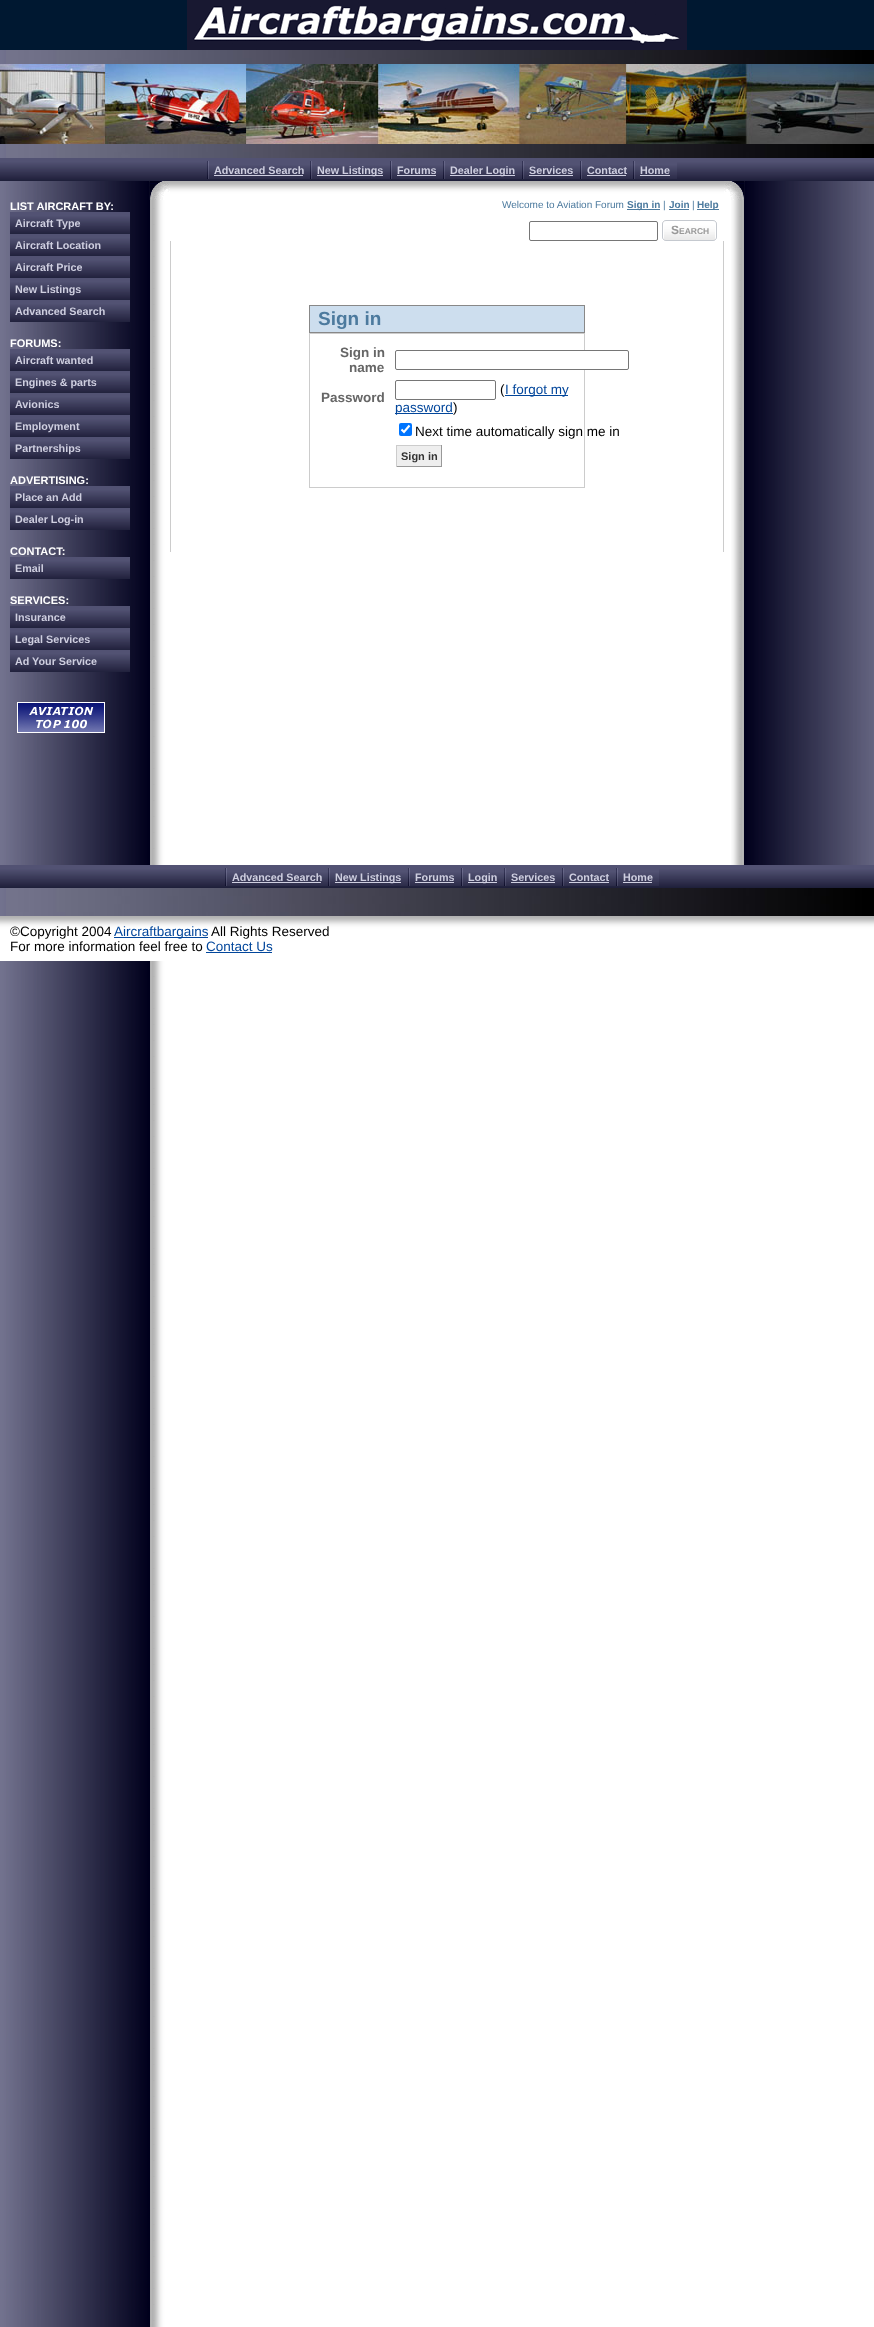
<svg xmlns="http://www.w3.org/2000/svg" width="874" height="2327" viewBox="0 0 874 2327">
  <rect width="100%" height="100%" fill="rgb(255,255,255)"/>
  <image x="0" y="50" width="874" height="2277" href="pic1.png"/>
  <rect x="0" y="0" width="874" height="50" fill="rgb(0,24,49)"/>
  <image x="187" y="0" width="500" height="50" href="pic2.png"/>
  <image x="6" y="50" width="868" height="14" href="pic3.png"/>
  <image x="0" y="64" width="874" height="80" href="pic4.png"/>
  <image x="6" y="144" width="868" height="14" href="pic3.png"/>
  <image x="0" y="158" width="874" height="23" href="pic5.png"/>
  <image x="207" y="161" width="103" height="18" href="pic6.png"/>
  <text x="214" y="174" font-family="Liberation Sans" font-size="10.75" font-weight="bold" fill="rgb(207,207,224)">Advanced Search</text>
  <rect x="214" y="175" width="89" height="1" fill="rgb(207,207,224)"/>
  <image x="310" y="161" width="80" height="18" href="pic7.png"/>
  <rect x="317" y="175" width="66" height="1" fill="rgb(207,207,224)"/>
  <text x="317" y="174" font-family="Liberation Sans" font-size="10.75" font-weight="bold" fill="rgb(207,207,224)">New Listings</text>
  <image x="390" y="161" width="53" height="18" href="pic8.png"/>
  <text x="397" y="174" font-family="Liberation Sans" font-size="10.75" font-weight="bold" fill="rgb(207,207,224)">Forums</text>
  <rect x="397" y="175" width="39" height="1" fill="rgb(207,207,224)"/>
  <image x="443" y="161" width="79" height="18" href="pic9.png"/>
  <rect x="450" y="175" width="65" height="1" fill="rgb(207,207,224)"/>
  <text x="450" y="174" font-family="Liberation Sans" font-size="10.75" font-weight="bold" fill="rgb(207,207,224)">Dealer Login</text>
  <image x="522" y="161" width="58" height="18" href="pic10.png"/>
  <text x="529" y="174" font-family="Liberation Sans" font-size="10.75" font-weight="bold" fill="rgb(207,207,224)">Services</text>
  <rect x="529" y="175" width="44" height="1" fill="rgb(207,207,224)"/>
  <image x="580" y="161" width="53" height="18" href="pic8.png"/>
  <text x="587" y="174" font-family="Liberation Sans" font-size="10.75" font-weight="bold" fill="rgb(207,207,224)">Contact</text>
  <rect x="587" y="175" width="39" height="1" fill="rgb(207,207,224)"/>
  <image x="633" y="161" width="44" height="18" href="pic11.png"/>
  <text x="640" y="174" font-family="Liberation Sans" font-size="10.75" font-weight="bold" fill="rgb(207,207,224)">Home</text>
  <rect x="640" y="175" width="30" height="1" fill="rgb(207,207,224)"/>
  <image x="170" y="181" width="554" height="19" href="pic12.png"/>
  <image x="0" y="181" width="170" height="19" href="pic13.png"/>
  <image x="724" y="181" width="150" height="19" href="pic14.png"/>
  <text x="10" y="210" font-family="Liberation Sans" font-size="11" font-weight="bold" fill="rgb(255,255,255)">LIST AIRCRAFT BY:</text>
  <image x="10" y="212" width="120" height="22" href="pic15.png"/>
  <text x="15" y="227" font-family="Liberation Sans" font-size="10.75" font-weight="bold" fill="rgb(207,207,224)">Aircraft Type</text>
  <image x="10" y="234" width="120" height="22" href="pic15.png"/>
  <text x="15" y="249" font-family="Liberation Sans" font-size="10.75" font-weight="bold" fill="rgb(207,207,224)">Aircraft Location</text>
  <image x="10" y="256" width="120" height="22" href="pic15.png"/>
  <text x="15" y="271" font-family="Liberation Sans" font-size="10.75" font-weight="bold" fill="rgb(207,207,224)">Aircraft Price</text>
  <image x="10" y="278" width="120" height="22" href="pic15.png"/>
  <text x="15" y="293" font-family="Liberation Sans" font-size="10.75" font-weight="bold" fill="rgb(207,207,224)">New Listings</text>
  <image x="10" y="300" width="120" height="22" href="pic15.png"/>
  <text x="15" y="315" font-family="Liberation Sans" font-size="10.75" font-weight="bold" fill="rgb(207,207,224)">Advanced Search</text>
  <text x="10" y="347" font-family="Liberation Sans" font-size="11" font-weight="bold" fill="rgb(255,255,255)">FORUMS:</text>
  <image x="10" y="349" width="120" height="22" href="pic15.png"/>
  <text x="15" y="364" font-family="Liberation Sans" font-size="10.75" font-weight="bold" fill="rgb(207,207,224)">Aircraft wanted</text>
  <image x="10" y="371" width="120" height="22" href="pic15.png"/>
  <text x="15" y="386" font-family="Liberation Sans" font-size="10.75" font-weight="bold" fill="rgb(207,207,224)">Engines &amp; parts</text>
  <image x="10" y="393" width="120" height="22" href="pic15.png"/>
  <text x="15" y="408" font-family="Liberation Sans" font-size="10.75" font-weight="bold" fill="rgb(207,207,224)">Avionics</text>
  <image x="10" y="415" width="120" height="22" href="pic15.png"/>
  <text x="15" y="430" font-family="Liberation Sans" font-size="10.75" font-weight="bold" fill="rgb(207,207,224)">Employment</text>
  <image x="10" y="437" width="120" height="22" href="pic15.png"/>
  <text x="15" y="452" font-family="Liberation Sans" font-size="10.75" font-weight="bold" fill="rgb(207,207,224)">Partnerships</text>
  <text x="10" y="484" font-family="Liberation Sans" font-size="11" font-weight="bold" fill="rgb(255,255,255)">ADVERTISING:</text>
  <image x="10" y="486" width="120" height="22" href="pic15.png"/>
  <text x="15" y="501" font-family="Liberation Sans" font-size="10.75" font-weight="bold" fill="rgb(207,207,224)">Place an Add</text>
  <image x="10" y="508" width="120" height="22" href="pic15.png"/>
  <text x="15" y="523" font-family="Liberation Sans" font-size="10.75" font-weight="bold" fill="rgb(207,207,224)">Dealer Log-in</text>
  <text x="10" y="555" font-family="Liberation Sans" font-size="11" font-weight="bold" fill="rgb(255,255,255)">CONTACT:</text>
  <image x="10" y="557" width="120" height="22" href="pic15.png"/>
  <text x="15" y="572" font-family="Liberation Sans" font-size="10.75" font-weight="bold" fill="rgb(207,207,224)">Email</text>
  <text x="10" y="604" font-family="Liberation Sans" font-size="11" font-weight="bold" fill="rgb(255,255,255)">SERVICES:</text>
  <image x="10" y="606" width="120" height="22" href="pic15.png"/>
  <text x="15" y="621" font-family="Liberation Sans" font-size="10.75" font-weight="bold" fill="rgb(207,207,224)">Insurance</text>
  <image x="10" y="628" width="120" height="22" href="pic15.png"/>
  <text x="15" y="643" font-family="Liberation Sans" font-size="10.75" font-weight="bold" fill="rgb(207,207,224)">Legal Services</text>
  <image x="10" y="650" width="120" height="22" href="pic15.png"/>
  <text x="15" y="665" font-family="Liberation Sans" font-size="10.75" font-weight="bold" fill="rgb(207,207,224)">Ad Your Service</text>
  <image x="17" y="702" width="88" height="31" href="pic16.png"/>
  <text x="502" y="208" font-family="Liberation Sans" font-size="10" fill="rgb(76,122,158)">Welcome to Aviation Forum</text>
  <rect x="627" y="209" width="33" height="1" fill="rgb(76,122,158)"/>
  <text x="627" y="208" font-family="Liberation Sans" font-size="10" font-weight="bold" fill="rgb(76,122,158)">Sign in</text>
  <text x="663" y="208" font-family="Liberation Sans" font-size="10" fill="rgb(76,122,158)">|</text>
  <text x="669" y="208" font-family="Liberation Sans" font-size="10" font-weight="bold" fill="rgb(76,122,158)">Join</text>
  <rect x="669" y="209" width="20" height="1" fill="rgb(76,122,158)"/>
  <text x="692" y="208" font-family="Liberation Sans" font-size="10" fill="rgb(76,122,158)">|</text>
  <rect x="697" y="209" width="22" height="1" fill="rgb(76,122,158)"/>
  <text x="697" y="208" font-family="Liberation Sans" font-size="10" font-weight="bold" fill="rgb(76,122,158)">Help</text>
  <rect x="529.5" y="221.5" width="128" height="19" rx="1.5" fill="none" stroke="rgb(118,118,118)"/>
  <image x="662" y="220" width="4" height="21" href="pic17.png"/>
  <image x="666" y="220" width="51" height="21" href="pic18.png"/>
  <text x="671" y="234" font-family="Liberation Sans" font-size="12" font-weight="bold" fill="rgb(153,153,153)">S</text>
  <text x="679" y="234" font-family="Liberation Sans" font-size="8.5" font-weight="bold" fill="rgb(153,153,153)">EARCH</text>
  <rect x="170" y="241" width="1" height="311" fill="rgb(204,204,204)"/>
  <rect x="309.5" y="305.5" width="275" height="27" fill="rgb(205,222,238)" stroke="rgb(136,136,136)"/>
  <text x="318" y="325" font-family="Liberation Sans" font-size="19" font-weight="bold" fill="rgb(76,122,158)">Sign in</text>
  <rect x="309.5" y="333.5" width="275" height="154" fill="none" stroke="rgb(204,204,204)"/>
  <g font-family="Liberation Sans" font-size="13.5" font-weight="bold" fill="rgb(102,102,102)">
    <text x="340" y="357">Sign in</text>
    <text x="349" y="372">name</text>
  </g>
  <rect x="395.5" y="350.5" width="233" height="19" rx="1.5" fill="rgb(255,255,255)" stroke="rgb(118,118,118)"/>
  <text x="321" y="402" font-family="Liberation Sans" font-size="13.5" font-weight="bold" fill="rgb(102,102,102)">Password</text>
  <rect x="395.5" y="380.5" width="100" height="19" rx="1.5" fill="none" stroke="rgb(118,118,118)"/>
  <text x="500" y="394" font-family="Liberation Sans" font-size="13.5" fill="rgb(0,0,0)">(</text>
  <rect x="505" y="395" width="63" height="1" fill="rgb(2,70,155)"/>
  <text x="505" y="394" font-family="Liberation Sans" font-size="13.5" fill="rgb(2,70,155)">I forgot my</text>
  <rect x="395" y="413" width="58" height="1" fill="rgb(2,70,155)"/>
  <text x="395" y="412" font-family="Liberation Sans" font-size="13.5" fill="rgb(2,70,155)">password</text>
  <text x="453" y="412" font-family="Liberation Sans" font-size="13.5" fill="rgb(0,0,0)">)</text>
  <rect x="399" y="423" width="13" height="13" rx="2" fill="rgb(0,117,255)"/>
  <path d="M401.5 429.5L404 432L409.5 425.5" fill="none" stroke="rgb(255,255,255)" stroke-width="2.1"/>
  <text x="415" y="436" font-family="Liberation Sans" font-size="13.5" fill="rgb(0,0,0)">Next time automatically sign me in</text>
  <rect x="397" y="446" width="44" height="20" fill="rgb(238,238,238)"/>
  <rect x="396" y="445" width="46" height="1" fill="rgb(204,204,204)"/>
  <rect x="441" y="445" width="1" height="22" fill="rgb(153,153,153)"/>
  <rect x="396" y="466" width="46" height="1" fill="rgb(153,153,153)"/>
  <rect x="396" y="445" width="1" height="22" fill="rgb(204,204,204)"/>
  <text x="401" y="460" font-family="Liberation Sans" font-size="11" font-weight="bold" fill="rgb(51,51,51)">Sign in</text>
  <rect x="723" y="241" width="1" height="311" fill="rgb(204,204,204)"/>
  <image x="731" y="200" width="143" height="665" href="pic19.png"/>
  <image x="0" y="865" width="874" height="23" href="pic5.png"/>
  <image x="225" y="868" width="103" height="18" href="pic6.png"/>
  <text x="232" y="881" font-family="Liberation Sans" font-size="10.75" font-weight="bold" fill="rgb(207,207,224)">Advanced Search</text>
  <rect x="232" y="882" width="89" height="1" fill="rgb(207,207,224)"/>
  <image x="328" y="868" width="80" height="18" href="pic7.png"/>
  <rect x="335" y="882" width="66" height="1" fill="rgb(207,207,224)"/>
  <text x="335" y="881" font-family="Liberation Sans" font-size="10.75" font-weight="bold" fill="rgb(207,207,224)">New Listings</text>
  <image x="408" y="868" width="53" height="18" href="pic8.png"/>
  <text x="415" y="881" font-family="Liberation Sans" font-size="10.75" font-weight="bold" fill="rgb(207,207,224)">Forums</text>
  <rect x="415" y="882" width="39" height="1" fill="rgb(207,207,224)"/>
  <image x="461" y="868" width="43" height="18" href="pic20.png"/>
  <rect x="468" y="882" width="29" height="1" fill="rgb(207,207,224)"/>
  <text x="468" y="881" font-family="Liberation Sans" font-size="10.75" font-weight="bold" fill="rgb(207,207,224)">Login</text>
  <image x="504" y="868" width="58" height="18" href="pic10.png"/>
  <text x="511" y="881" font-family="Liberation Sans" font-size="10.75" font-weight="bold" fill="rgb(207,207,224)">Services</text>
  <rect x="511" y="882" width="44" height="1" fill="rgb(207,207,224)"/>
  <image x="562" y="868" width="54" height="18" href="pic21.png"/>
  <text x="569" y="881" font-family="Liberation Sans" font-size="10.75" font-weight="bold" fill="rgb(207,207,224)">Contact</text>
  <rect x="569" y="882" width="40" height="1" fill="rgb(207,207,224)"/>
  <image x="616" y="868" width="43" height="18" href="pic20.png"/>
  <text x="623" y="881" font-family="Liberation Sans" font-size="10.75" font-weight="bold" fill="rgb(207,207,224)">Home</text>
  <rect x="623" y="882" width="29" height="1" fill="rgb(207,207,224)"/>
  <image x="6" y="888" width="868" height="28" href="pic22.png"/>
  <image x="0" y="916" width="874" height="45" href="pic23.png"/>
  <text x="10" y="936" font-family="Liberation Sans" font-size="13.5" fill="rgb(0,0,0)">©Copyright 2004</text>
  <rect x="114" y="937" width="94" height="1" fill="rgb(2,70,155)"/>
  <text x="114" y="936" font-family="Liberation Sans" font-size="13.5" fill="rgb(2,70,155)">Aircraftbargains</text>
  <g font-family="Liberation Sans" font-size="13.5" fill="rgb(0,0,0)">
    <text x="211" y="936">All Rights Reserved</text>
    <text x="10" y="951">For more information feel free to</text>
  </g>
  <text x="206" y="951" font-family="Liberation Sans" font-size="13.5" fill="rgb(2,70,155)">Contact Us</text>
  <rect x="206" y="952" width="66" height="1" fill="rgb(2,70,155)"/>
</svg>
